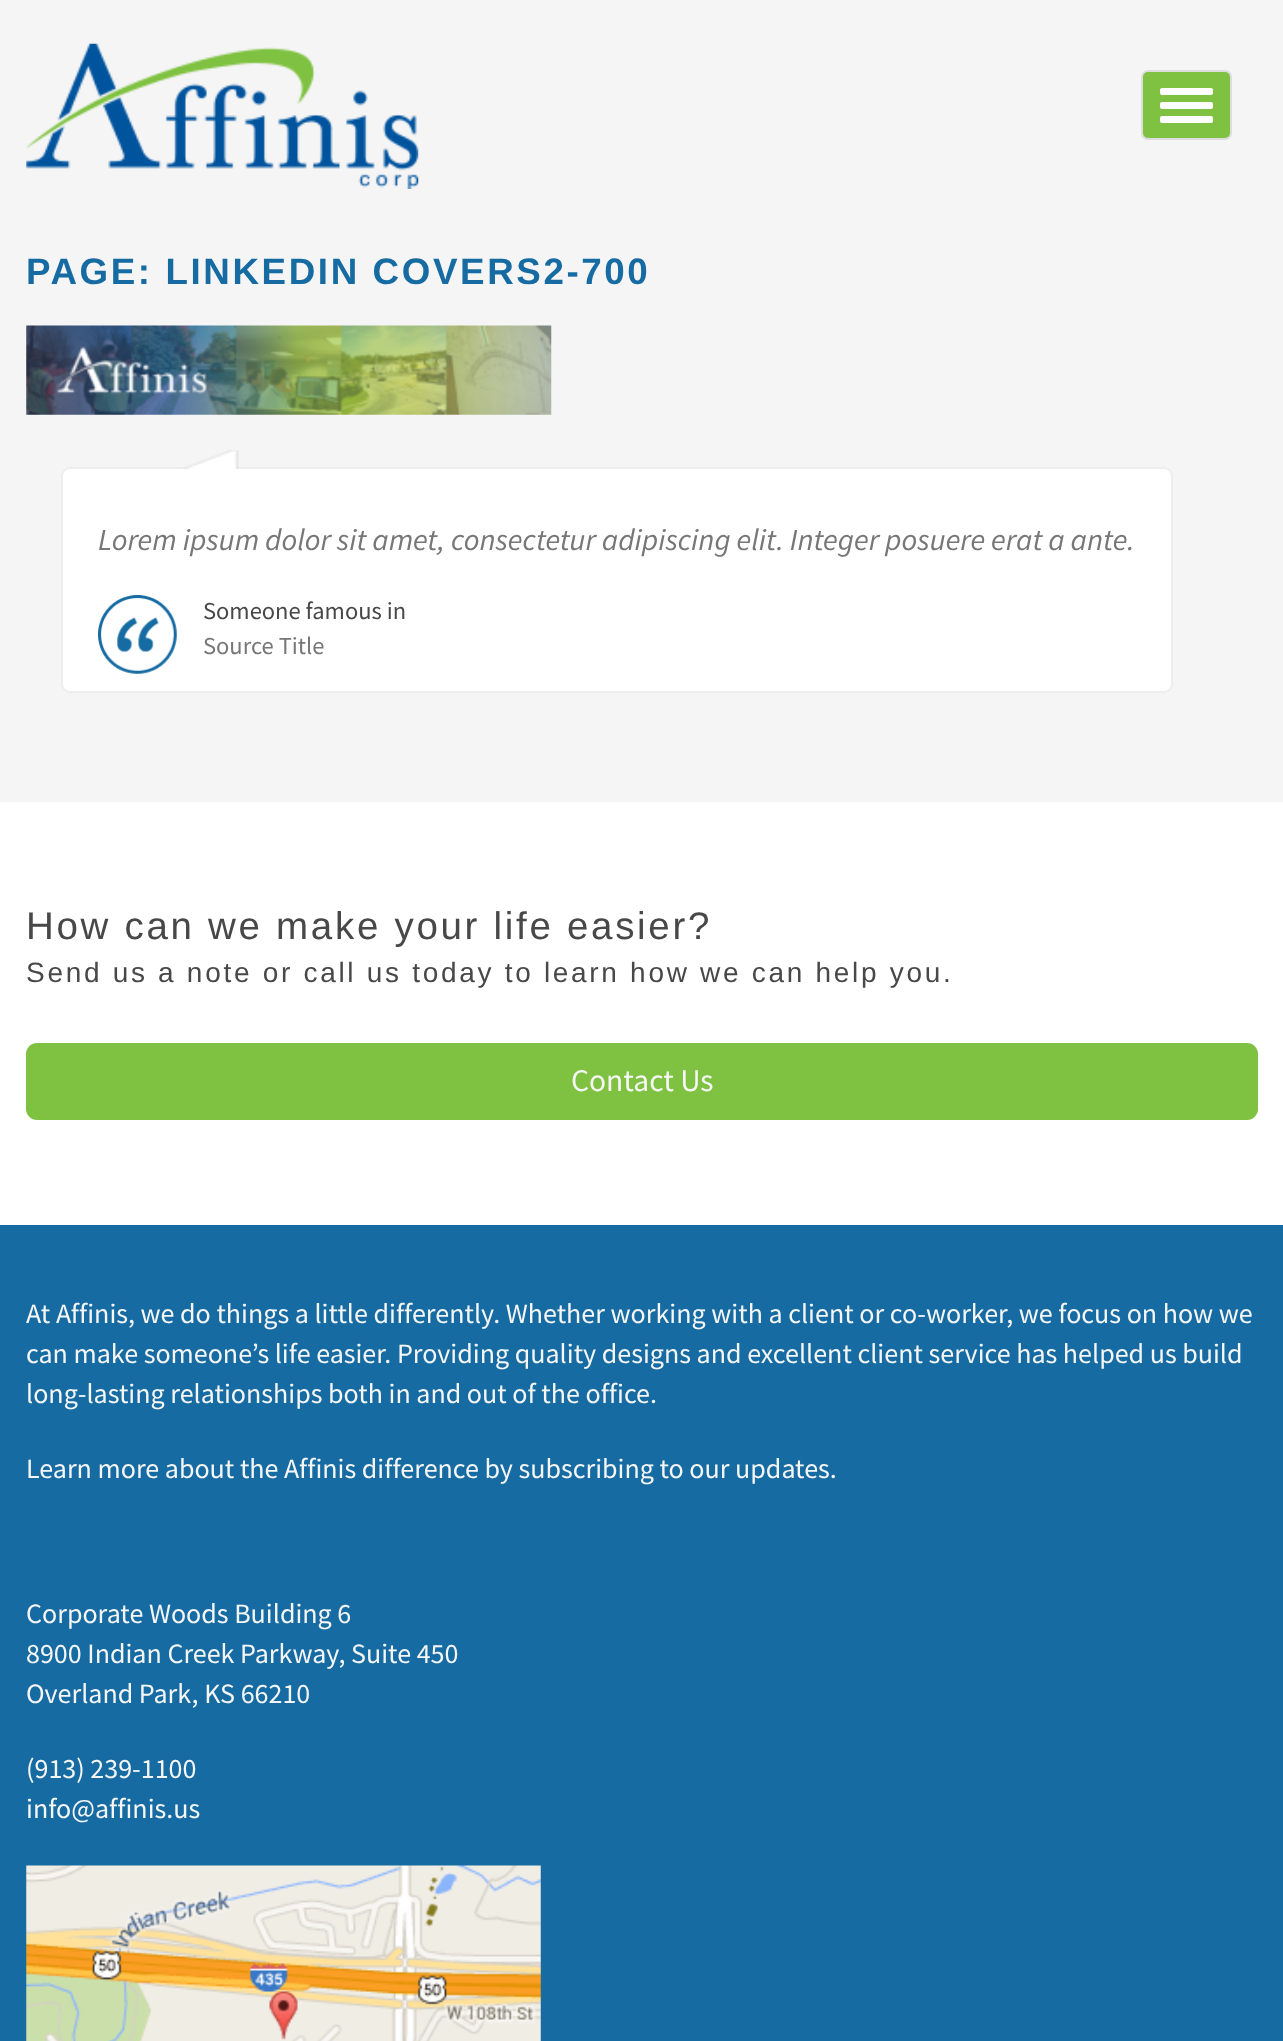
<svg xmlns="http://www.w3.org/2000/svg" width="1283" height="2041" viewBox="0 0 1283 2041">
  <rect width="100%" height="100%" fill="rgb(255,255,255)"/>
  <rect x="0" y="0" width="1283" height="802" fill="rgb(245,245,245)"/>
  <image x="26" y="43" width="393" height="146" href="pic1.png"/>
  <rect x="1142" y="71" width="89" height="68" rx="6" fill="rgb(127,194,65)" stroke="rgb(221,221,221)" stroke-width="2"/>
  <rect x="1160" y="88" width="53" height="7" rx="2" fill="rgb(255,255,255)"/>
  <rect x="1160" y="102" width="53" height="7" rx="2" fill="rgb(255,255,255)"/>
  <rect x="1160" y="116" width="53" height="7" rx="2" fill="rgb(255,255,255)"/>
  <text x="26" y="284" font-family="Liberation Sans" font-size="36.75" font-weight="bold" letter-spacing="2.6" fill="rgb(21,107,162)">PAGE: LINKEDIN COVERS2-700</text>
  <image x="26" y="325" width="526" height="90" href="pic2.png"/>
  <rect x="62" y="468" width="1110" height="224" rx="8" fill="rgb(255,255,255)" stroke="rgb(238,238,238)" stroke-width="2"/>
  <image x="183" y="450" width="56" height="19" href="pic3.png"/>
  <text x="98" y="550" font-family="Source Sans Pro" font-size="30.6" font-style="italic" fill="rgb(119,119,119)">Lorem ipsum dolor sit amet, consectetur adipiscing elit. Integer posuere erat a ante.</text>
  <image x="98" y="595" width="79" height="79" href="pic4.png"/>
  <text x="203" y="619" font-family="Source Sans Pro" font-size="24.5" fill="rgb(72,72,72)">Someone famous in</text>
  <text x="203" y="654" font-family="Source Sans Pro" font-size="24.5" fill="rgb(119,119,119)">Source Title</text>
  <text x="26" y="939" font-family="Liberation Sans" font-size="38.5" letter-spacing="2.7" fill="rgb(72,72,72)">How can we make your life easier?</text>
  <text x="26" y="982" font-family="Liberation Sans" font-size="28" letter-spacing="2.7" fill="rgb(72,72,72)">Send us a note or call us today to learn how we can help you.</text>
  <rect x="26" y="1043" width="1232" height="77" rx="11" fill="rgb(127,194,65)"/>
  <text x="571" y="1091" font-family="Source Sans Pro" font-size="31.5" fill="rgb(246,246,246)">Contact Us</text>
  <rect x="0" y="1225" width="1283" height="816" fill="rgb(21,107,162)"/>
  <g font-family="Source Sans Pro" font-size="28" fill="rgb(246,246,246)">
    <text>
      <tspan x="26" y="1323">At Affinis, we do things a little differently. Whether working with a client or co-worker, we focus on how we</tspan>
      <tspan x="26" y="1363">can make someone’s life easier. Providing quality designs and excellent client service has helped us build</tspan>
      <tspan x="26" y="1403">long-lasting relationships both in and out of the office.</tspan>
    </text>
    <text x="26" y="1478">Learn more about the Affinis difference by subscribing to our updates.</text>
    <text>
      <tspan x="26" y="1623">Corporate Woods Building 6</tspan>
      <tspan x="26" y="1663">8900 Indian Creek Parkway, Suite 450</tspan>
      <tspan x="26" y="1703">Overland Park, KS 66210</tspan>
    </text>
    <text>
      <tspan x="26" y="1778">(913) 239-1100</tspan>
      <tspan x="26" y="1818">info@affinis.us</tspan>
    </text>
  </g>
  <image x="26" y="1865" width="515" height="176" href="pic5.png"/>
</svg>
